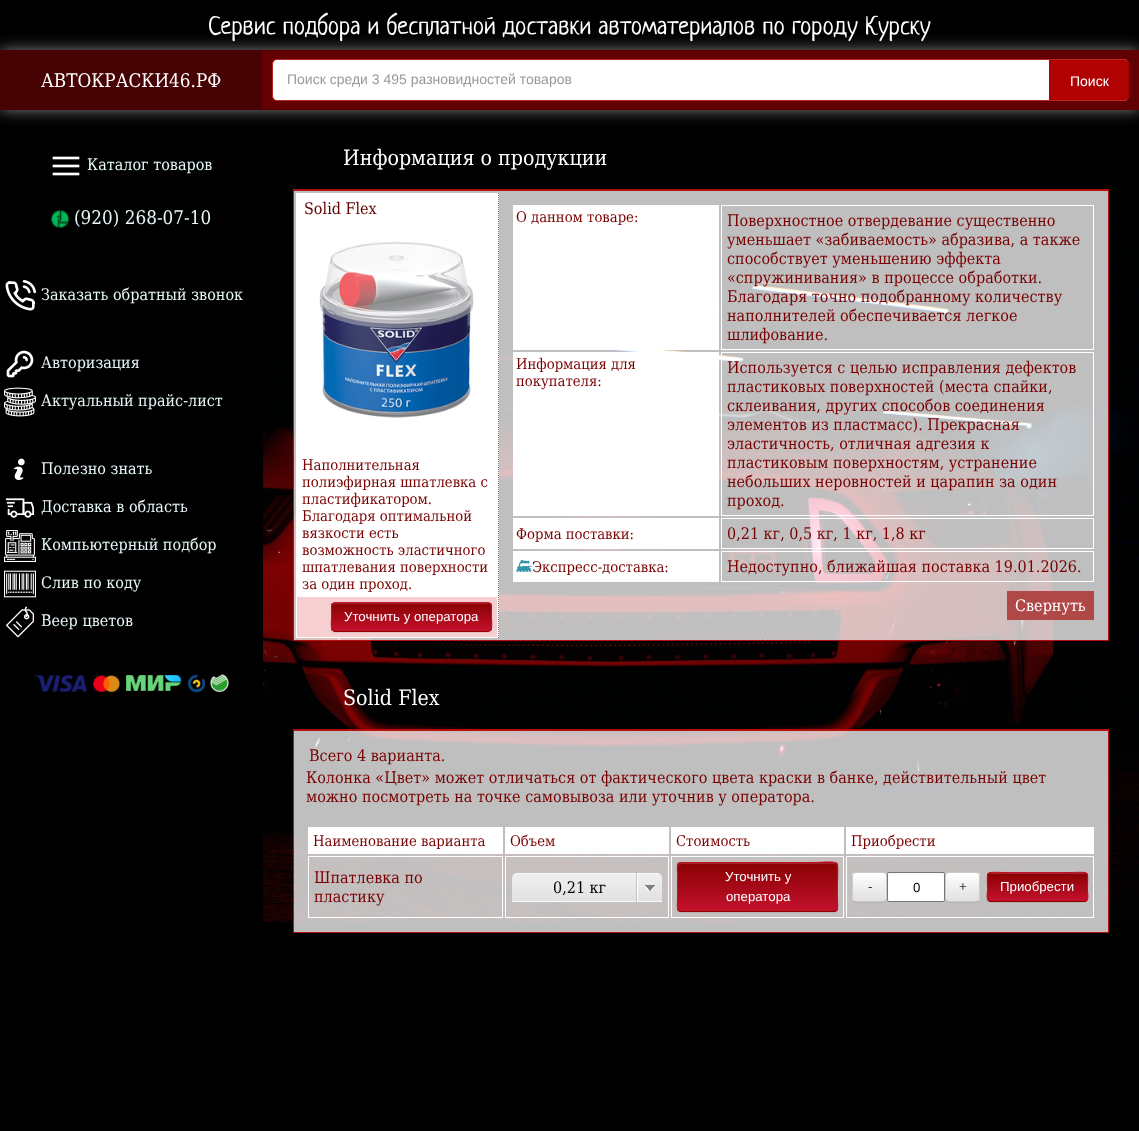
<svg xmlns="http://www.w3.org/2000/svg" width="1139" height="1131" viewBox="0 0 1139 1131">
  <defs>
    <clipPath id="clip1"><rect x="331" y="602" width="161" height="30" rx="4"/></clipPath>
    <linearGradient id="g1" gradientUnits="userSpaceOnUse" x1="412" y1="603" x2="412" y2="631"><stop offset="0" stop-color="rgb(137,1,1)"/><stop offset="1" stop-color="rgb(196,17,46)"/></linearGradient>
    <clipPath id="clip2"><rect x="677" y="862" width="161" height="50" rx="4"/></clipPath>
    <linearGradient id="g2" gradientUnits="userSpaceOnUse" x1="758" y1="863" x2="758" y2="911"><stop offset="0" stop-color="rgb(137,1,1)"/><stop offset="1" stop-color="rgb(196,17,46)"/></linearGradient>
    <clipPath id="clip3"><rect x="852" y="872" width="35" height="30" rx="4"/></clipPath>
    <linearGradient id="g3" gradientUnits="userSpaceOnUse" x1="870" y1="873" x2="870" y2="901"><stop offset="0" stop-color="rgb(255,255,255)"/><stop offset="1" stop-color="rgb(224,224,224)"/></linearGradient>
    <clipPath id="clip4"><rect x="945" y="872" width="35" height="30" rx="4"/></clipPath>
    <linearGradient id="g4" gradientUnits="userSpaceOnUse" x1="963" y1="873" x2="963" y2="901"><stop offset="0" stop-color="rgb(255,255,255)"/><stop offset="1" stop-color="rgb(224,224,224)"/></linearGradient>
    <clipPath id="clip5"><rect x="987" y="872" width="101" height="30" rx="4"/></clipPath>
    <linearGradient id="g5" gradientUnits="userSpaceOnUse" x1="1038" y1="873" x2="1038" y2="901"><stop offset="0" stop-color="rgb(137,1,1)"/><stop offset="1" stop-color="rgb(196,17,46)"/></linearGradient>
  </defs>
  <rect width="100%" height="100%" fill="rgb(0,0,0)"/>
  <text x="208" y="34" font-family="Neucha" font-size="25.3" fill="rgb(255,255,255)">Сервис подбора и бесплатной доставки автоматериалов по городу Курску</text>
  <rect x="0" y="50" width="1139" height="60" fill="rgba(255,255,255,0.5)" filter="blur(7.5px)"/>
  <rect x="262" y="50" width="877" height="60" fill="rgb(99,1,2)"/>
  <rect x="0" y="50" width="262" height="60" fill="rgb(71,3,4)"/>
  <text x="41" y="87" font-family="DejaVu Serif" font-size="18.75" fill="rgb(255,255,255)">АВТОКРАСКИ46.РФ</text>
  <rect x="272.5" y="59.5" width="856" height="41" rx="4.5" fill="rgb(255,255,255)" stroke="rgb(188,37,37)"/>
  <text x="287" y="84" font-family="Liberation Sans" font-size="14" fill="rgb(153,153,153)">Поиск среди 3 495 разновидностей товаров</text>
  <path d="M1049 60H1124C1127 60 1129 62 1129 65V95C1129 98 1127 100 1124 100H1049Z" fill="rgb(176,2,3)"/>
  <text x="1070" y="86" font-family="Liberation Sans" font-size="14" fill="rgb(255,255,255)">Поиск</text>
  <image x="52" y="156" width="28" height="20" href="pic1.png"/>
  <text x="87" y="170" font-family="DejaVu Serif" font-size="16" fill="rgb(231,248,249)">Каталог товаров</text>
  <image x="51" y="210" width="18" height="18" href="pic2.png"/>
  <text x="74" y="224" font-family="DejaVu Serif" font-size="18.75" fill="rgb(231,248,249)">(920) 268-07-10</text>
  <image x="5" y="280" width="31" height="31" href="pic3.png"/>
  <text x="41" y="300" font-family="DejaVu Serif" font-size="16" fill="rgb(231,248,249)">Заказать обратный звонок</text>
  <image x="6" y="350" width="28" height="28" href="pic4.png"/>
  <text x="41" y="368" font-family="DejaVu Serif" font-size="16" fill="rgb(231,248,249)">Авторизация</text>
  <image x="4" y="387" width="32" height="30" href="pic5.png"/>
  <text x="41" y="406" font-family="DejaVu Serif" font-size="16" fill="rgb(231,248,249)">Актуальный прайс-лист</text>
  <image x="14" y="458" width="11" height="22" href="pic6.png"/>
  <text x="41" y="474" font-family="DejaVu Serif" font-size="16" fill="rgb(231,248,249)">Полезно знать</text>
  <image x="5" y="498" width="29" height="20" href="pic7.png"/>
  <text x="41" y="512" font-family="DejaVu Serif" font-size="16" fill="rgb(231,248,249)">Доставка в область</text>
  <image x="4" y="530" width="32" height="32" href="pic8.png"/>
  <text x="41" y="550" font-family="DejaVu Serif" font-size="16" fill="rgb(231,248,249)">Компьютерный подбор</text>
  <image x="4" y="570" width="32" height="28" href="pic9.png"/>
  <text x="41" y="588" font-family="DejaVu Serif" font-size="16" fill="rgb(231,248,249)">Слив по коду</text>
  <image x="6" y="606" width="28" height="32" href="pic10.png"/>
  <text x="41" y="626" font-family="DejaVu Serif" font-size="16" fill="rgb(231,248,249)">Веер цветов</text>
  <image x="34" y="674" width="53" height="19" href="pic11.png"/>
  <image x="92" y="675" width="28" height="18" href="pic12.png"/>
  <image x="126" y="675" width="56" height="16" href="pic13.png"/>
  <image x="187" y="674" width="19" height="19" href="pic14.png"/>
  <image x="210" y="674" width="19" height="19" href="pic15.png"/>
  <image x="263" y="210" width="876" height="712" href="pic16.png"/>
  <text x="343" y="165" font-family="DejaVu Serif" font-size="21.25" fill="rgb(255,255,255)">Информация о продукции</text>
  <rect x="294" y="191" width="814" height="449" fill="rgba(255,255,255,0.75)"/>
  <rect x="293" y="189" width="816" height="2" fill="rgb(181,16,16)"/>
  <rect x="1108" y="189" width="1" height="452" fill="rgb(181,16,16)"/>
  <rect x="293" y="640" width="816" height="1" fill="rgb(181,16,16)"/>
  <rect x="293" y="189" width="1" height="452" fill="rgb(181,16,16)"/>
  <rect x="296" y="193" width="203" height="445" fill="rgb(255,255,255)"/>
  <path d="M498.5 193V638" fill="none" stroke="rgb(128,128,128)" stroke-dasharray="1 1"/>
  <text x="304" y="214" font-family="DejaVu Serif" font-size="16" fill="rgb(95,0,0)">Solid Flex</text>
  <image x="319" y="241" width="155" height="177" href="pic17.png"/>
  <g font-family="DejaVu Serif" font-size="14.7" fill="rgb(121,0,0)">
    <text>
      <tspan x="302" y="470">Наполнительная</tspan>
      <tspan x="302" y="487">полиэфирная шпатлевка с</tspan>
      <tspan x="302" y="504">пластификатором.</tspan>
      <tspan x="302" y="521">Благодаря оптимальной</tspan>
      <tspan x="302" y="538">вязкости есть</tspan>
      <tspan x="302" y="555">возможность эластичного</tspan>
      <tspan x="302" y="572">шпатлевания поверхности</tspan>
      <tspan x="302" y="589">за один проход.</tspan>
    </text>
  </g>
  <rect x="297" y="597" width="200" height="40" fill="rgb(246,208,208)"/>
  <rect x="331" y="603" width="161" height="30" rx="4" fill="rgba(0,0,0,0.07)" filter="blur(0.5px)"/>
  <g clip-path="url(#clip1)">
    <rect x="331" y="603" width="161" height="28" fill="url(#g1)"/>
  </g>
  <path d="M335 604H488C490 604 491 605 491 607C491 605 490 603 488 603H334C332 603 332 605 332 607C332 605 333 604 335 604Z" fill="rgb(156,39,40)"/>
  <path d="M490.5 630.5C490 631 489 631.5 488 631.5H335C334 631.5 333 631 332.5 630.5" fill="none" stroke="rgb(145,1,1)"/>
  <path d="M332.5 630.5C330.5 628.5 331.5 620 331.5 617V609.5C331.5 607 331 602.5 335 602.5H488C492 602.5 491.5 607 491.5 609.5V617C491.5 620 492.5 628.5 490.5 630.5" fill="none" stroke="rgb(196,17,46)"/>
  <text x="344" y="621" font-family="Liberation Sans" font-size="13.25" fill="rgb(255,255,255)">Уточнить у оператора</text>
  <rect x="513" y="205" width="206" height="145" fill="rgb(255,255,255)"/>
  <text x="516" y="222" font-family="DejaVu Serif" font-size="14.7" fill="rgb(121,0,0)">О данном товаре:</text>
  <rect x="721.5" y="205.5" width="372" height="144" fill="none" stroke="rgb(255,255,255)"/>
  <g font-family="DejaVu Serif" font-size="16" fill="rgb(121,0,0)">
    <text>
      <tspan x="727" y="226">Поверхностное отвердевание существенно</tspan>
      <tspan x="727" y="245">уменьшает «забиваемость» абразива, а также</tspan>
      <tspan x="727" y="264">способствует уменьшению эффекта</tspan>
      <tspan x="727" y="283">«спружинивания» в процессе обработки.</tspan>
      <tspan x="727" y="302">Благодаря точно подобранному количеству</tspan>
      <tspan x="727" y="321">наполнителей обеспечивается легкое</tspan>
      <tspan x="727" y="340">шлифование.</tspan>
    </text>
  </g>
  <rect x="513" y="352" width="206" height="164" fill="rgb(255,255,255)"/>
  <g font-family="DejaVu Serif" font-size="14.7" fill="rgb(121,0,0)">
    <text>
      <tspan x="516" y="369">Информация для</tspan>
      <tspan x="516" y="386">покупателя:</tspan>
    </text>
  </g>
  <rect x="721.5" y="352.5" width="372" height="163" fill="none" stroke="rgb(255,255,255)"/>
  <g font-family="DejaVu Serif" font-size="16" fill="rgb(121,0,0)">
    <text>
      <tspan x="727" y="373">Используется с целью исправления дефектов</tspan>
      <tspan x="727" y="392">пластиковых поверхностей (места спайки,</tspan>
      <tspan x="727" y="411">склеивания, других способов соединения</tspan>
      <tspan x="727" y="430">элементов из пластмасс). Прекрасная</tspan>
      <tspan x="727" y="449">эластичность, отличная адгезия к</tspan>
      <tspan x="727" y="468">пластиковым поверхностям, устранение</tspan>
      <tspan x="727" y="487">небольших неровностей и царапин за один</tspan>
      <tspan x="727" y="506">проход.</tspan>
    </text>
  </g>
  <rect x="513" y="518" width="206" height="31" fill="rgb(255,255,255)"/>
  <text x="516" y="539" font-family="DejaVu Serif" font-size="14.7" fill="rgb(121,0,0)">Форма поставки:</text>
  <rect x="721.5" y="518.5" width="372" height="30" fill="none" stroke="rgb(255,255,255)"/>
  <text x="727" y="539" font-family="DejaVu Serif" font-size="16" fill="rgb(121,0,0)">0,21 кг, 0,5 кг, 1 кг, 1,8 кг</text>
  <rect x="513" y="551" width="206" height="31" fill="rgb(255,255,255)"/>
  <image x="516" y="560" width="16" height="12" href="pic18.png"/>
  <text x="532" y="572" font-family="DejaVu Serif" font-size="14.7" fill="rgb(121,0,0)">Экспресс-доставка:</text>
  <rect x="721.5" y="551.5" width="372" height="30" fill="none" stroke="rgb(255,255,255)"/>
  <text x="727" y="572" font-family="DejaVu Serif" font-size="16" fill="rgb(121,0,0)">Недоступно, ближайшая поставка 19.01.2026.</text>
  <rect x="1007" y="591" width="87" height="29" fill="rgb(176,72,72)"/>
  <text x="1015" y="611" font-family="DejaVu Serif" font-size="16" fill="rgb(255,255,255)">Свернуть</text>
  <text x="343" y="705" font-family="DejaVu Serif" font-size="21.25" fill="rgb(255,255,255)">Solid Flex</text>
  <rect x="294" y="731" width="814" height="201" fill="rgba(255,255,255,0.75)"/>
  <rect x="293" y="729" width="816" height="2" fill="rgb(181,16,16)"/>
  <rect x="1108" y="729" width="1" height="204" fill="rgb(181,16,16)"/>
  <rect x="293" y="932" width="816" height="1" fill="rgb(181,16,16)"/>
  <rect x="293" y="729" width="1" height="204" fill="rgb(181,16,16)"/>
  <g font-family="DejaVu Serif" font-size="16" fill="rgb(121,0,0)">
    <text x="309" y="761">Всего 4 варианта.</text>
    <text>
      <tspan x="306" y="783">Колонка «Цвет» может отличаться от фактического цвета краски в банке, действительный цвет</tspan>
      <tspan x="306" y="802">можно посмотреть на точке самовывоза или уточнив у оператора.</tspan>
    </text>
  </g>
  <rect x="308" y="827" width="195" height="27" fill="rgb(255,255,255)"/>
  <text x="313" y="846" font-family="DejaVu Serif" font-size="14.7" fill="rgb(121,0,0)">Наименование варианта</text>
  <rect x="505" y="827" width="164" height="27" fill="rgb(255,255,255)"/>
  <text x="510" y="846" font-family="DejaVu Serif" font-size="14.7" fill="rgb(121,0,0)">Объем</text>
  <rect x="671" y="827" width="173" height="27" fill="rgb(255,255,255)"/>
  <text x="676" y="846" font-family="DejaVu Serif" font-size="14.7" fill="rgb(121,0,0)">Стоимость</text>
  <rect x="846" y="827" width="248" height="27" fill="rgb(255,255,255)"/>
  <text x="851" y="846" font-family="DejaVu Serif" font-size="14.7" fill="rgb(121,0,0)">Приобрести</text>
  <rect x="308.5" y="856.5" width="194" height="61" fill="none" stroke="rgb(255,255,255)"/>
  <g font-family="DejaVu Serif" font-size="16" fill="rgb(121,0,0)">
    <text>
      <tspan x="314" y="883">Шпатлевка по</tspan>
      <tspan x="314" y="902">пластику</tspan>
    </text>
  </g>
  <rect x="505.5" y="856.5" width="163" height="61" fill="none" stroke="rgb(255,255,255)"/>
  <rect x="511.5" y="872.5" width="151" height="30" rx="4.5" fill="none" stroke="rgb(195,195,195)"/>
  <image x="512" y="873" width="150" height="29" href="pic19.png"/>
  <text x="553" y="893" font-family="DejaVu Serif" font-size="16" fill="rgb(0,0,0)">0,21 кг</text>
  <rect x="637" y="873" width="1" height="29" fill="rgb(255,255,255)"/>
  <rect x="636" y="873" width="1" height="29" fill="rgb(195,195,195)"/>
  <image x="645" y="885" width="10" height="6" href="pic20.png"/>
  <rect x="671.5" y="856.5" width="172" height="61" fill="none" stroke="rgb(255,255,255)"/>
  <rect x="677" y="863" width="161" height="50" rx="4" fill="rgba(0,0,0,0.07)" filter="blur(0.5px)"/>
  <rect x="677" y="862" width="161" height="50" rx="4" fill="rgb(188,2,3)"/>
  <g clip-path="url(#clip2)">
    <rect x="677" y="863" width="161" height="48" fill="url(#g2)"/>
  </g>
  <path d="M681 864H834C836 864 837 865 837 867C837 865 836 863 834 863H680C678 863 678 865 678 867C678 865 679 864 681 864Z" fill="rgb(156,39,39)"/>
  <path d="M836.5 910.5C836 911 835 911.5 834 911.5H681C680 911.5 679 911 678.5 910.5" fill="none" stroke="rgb(145,1,1)"/>
  <path d="M678.5 910.5C676.5 908.5 677.5 902.5 677.5 901V873C677.5 870.5 676 862.5 681 862.5H808.5C843 862.5 837.5 856 837.5 887V901C837.5 902.5 838.5 908.5 836.5 910.5" fill="none" stroke="rgb(196,17,46)"/>
  <g font-family="Liberation Sans" font-size="13.25" fill="rgb(255,255,255)">
    <text x="725" y="881">Уточнить у</text>
    <text x="726" y="901">оператора</text>
  </g>
  <rect x="846.5" y="856.5" width="247" height="61" fill="none" stroke="rgb(255,255,255)"/>
  <rect x="852" y="873" width="35" height="30" rx="4" fill="rgba(0,0,0,0.07)" filter="blur(0.5px)"/>
  <g clip-path="url(#clip3)">
    <rect x="852" y="873" width="35" height="28" fill="url(#g3)"/>
  </g>
  <rect x="852.5" y="872.5" width="34" height="29" rx="3.5" fill="none" stroke="rgb(204,204,204)"/>
  <text x="868" y="891" font-family="Liberation Sans" font-size="13.25" fill="rgb(51,51,51)">-</text>
  <rect x="887.5" y="872.5" width="57" height="29" rx="1.5" fill="rgb(255,255,255)" stroke="rgb(118,118,118)"/>
  <text x="913" y="892" font-family="Liberation Sans" font-size="13.25" fill="rgb(0,0,0)">0</text>
  <rect x="945" y="873" width="35" height="30" rx="4" fill="rgba(0,0,0,0.07)" filter="blur(0.5px)"/>
  <g clip-path="url(#clip4)">
    <rect x="945" y="873" width="35" height="28" fill="url(#g4)"/>
  </g>
  <rect x="945.5" y="872.5" width="34" height="29" rx="3.5" fill="none" stroke="rgb(204,204,204)"/>
  <text x="959" y="891" font-family="Liberation Sans" font-size="13.25" fill="rgb(51,51,51)">+</text>
  <rect x="987" y="873" width="101" height="30" rx="4" fill="rgba(0,0,0,0.07)" filter="blur(0.5px)"/>
  <rect x="987" y="872" width="101" height="30" rx="4" fill="rgb(188,2,3)"/>
  <g clip-path="url(#clip5)">
    <rect x="987" y="873" width="101" height="28" fill="url(#g5)"/>
  </g>
  <path d="M991 874H1084C1086 874 1087 875 1087 877C1087 869 1071 873 1068 873H1006C1004 873 988 869 988 877C988 875 989 874 991 874Z" fill="rgba(255,255,255,0.15)"/>
  <path d="M1086.5 900.5L1084.5 901.5H1006.5H991L988.5 900.5" fill="none" stroke="rgb(145,1,1)"/>
  <path d="M988.5 900.5C986 898 987.5 893.5 987.5 890.5C987.5 869 984 872.5 1006.5 872.5H1068.5C1091 872.5 1087.5 869 1087.5 890.5C1087.5 893.5 1089 898 1086.5 900.5" fill="none" stroke="rgb(196,17,46)"/>
  <text x="1000" y="891" font-family="Liberation Sans" font-size="13.25" fill="rgb(255,255,255)">Приобрести</text>
</svg>
